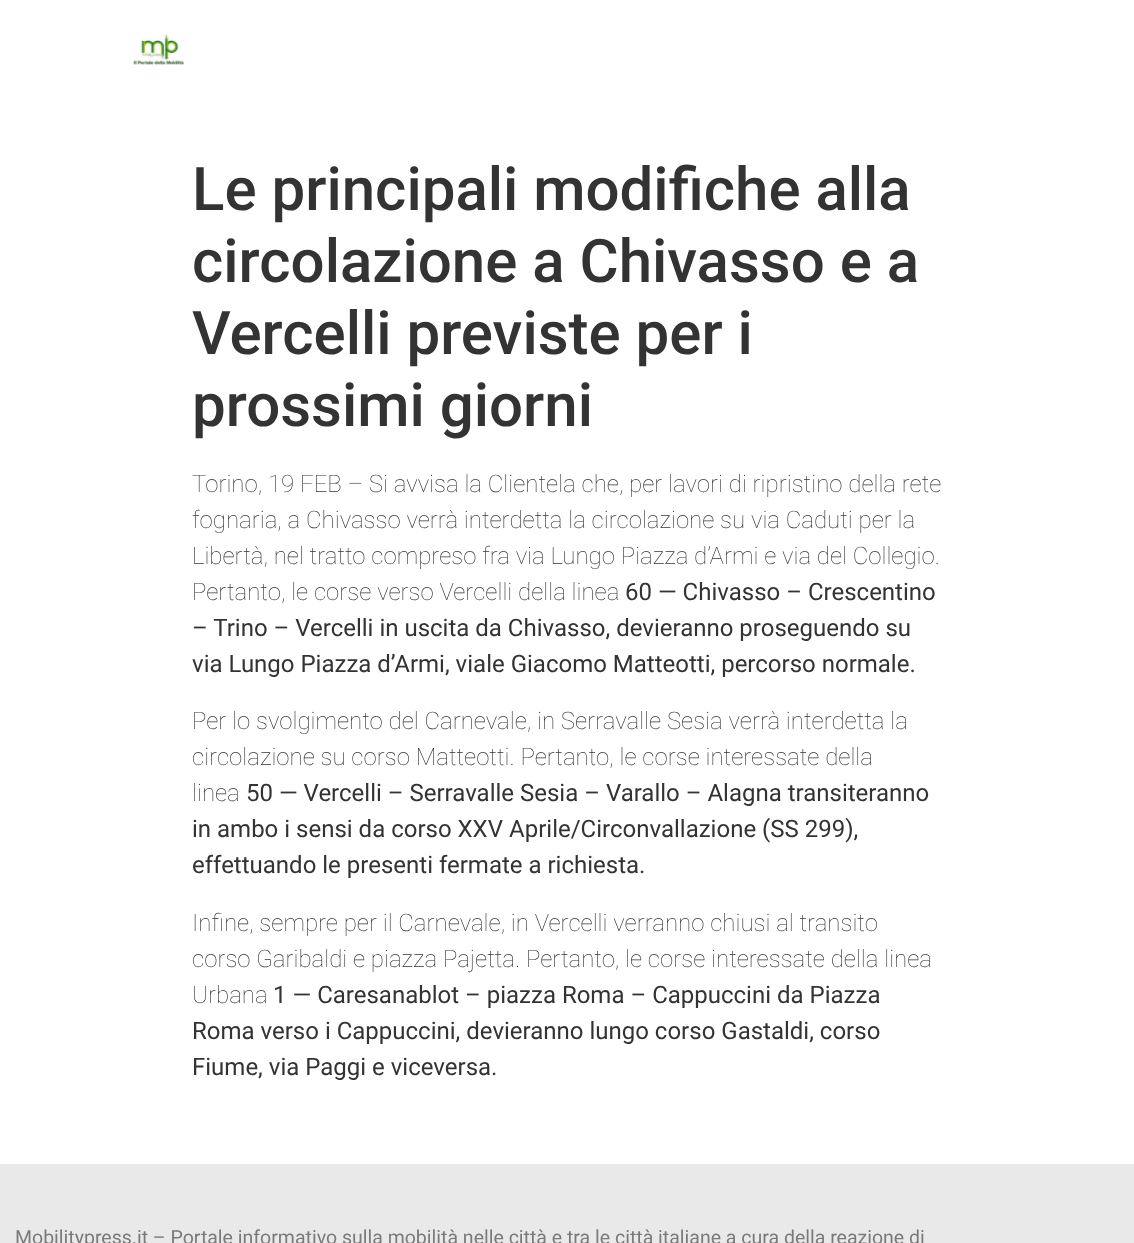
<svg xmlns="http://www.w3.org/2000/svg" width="1134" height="1243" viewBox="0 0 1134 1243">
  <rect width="100%" height="100%" fill="rgb(255,255,255)"/>
  <image x="133" y="34" width="51" height="31" href="pic1.png"/>
  <g font-family="Roboto" font-size="60" font-weight="500" fill="rgb(51,51,51)">
    <text>
      <tspan x="192" y="210">Le principali modifiche alla</tspan>
      <tspan x="192" y="282">circolazione a Chivasso e a</tspan>
      <tspan x="192" y="354">Vercelli previste per i</tspan>
      <tspan x="192" y="426">prossimi giorni</tspan>
    </text>
  </g>
  <g font-family="Roboto" font-size="24" font-weight="100" fill="rgb(51,51,51)">
    <text>
      <tspan x="192" y="492">Torino, 19 FEB – Si avvisa la Clientela che, per lavori di ripristino della rete</tspan>
      <tspan x="192" y="528">fognaria, a Chivasso verrà interdetta la circolazione su via Caduti per la</tspan>
      <tspan x="192" y="564">Libertà, nel tratto compreso fra via Lungo Piazza d’Armi e via del Collegio.</tspan>
      <tspan x="192" y="600">Pertanto, le corse verso Vercelli della linea</tspan>
    </text>
  </g>
  <g font-family="Roboto" font-size="24" fill="rgb(51,51,51)">
    <text x="625" y="600">60 — Chivasso – Crescentino</text>
    <text>
      <tspan x="192" y="636">– Trino – Vercelli in uscita da Chivasso, devieranno proseguendo su</tspan>
      <tspan x="192" y="672">via Lungo Piazza d’Armi, viale Giacomo Matteotti, percorso normale.</tspan>
    </text>
  </g>
  <g font-family="Roboto" font-size="24" font-weight="100" fill="rgb(51,51,51)">
    <text>
      <tspan x="192" y="729">Per lo svolgimento del Carnevale, in Serravalle Sesia verrà interdetta la</tspan>
      <tspan x="192" y="765">circolazione su corso Matteotti. Pertanto, le corse interessate della</tspan>
      <tspan x="192" y="801">linea</tspan>
    </text>
  </g>
  <g font-family="Roboto" font-size="24" fill="rgb(51,51,51)">
    <text x="246" y="801">50 — Vercelli – Serravalle Sesia – Varallo – Alagna transiteranno</text>
    <text>
      <tspan x="192" y="837">in ambo i sensi da corso XXV Aprile/Circonvallazione (SS 299),</tspan>
      <tspan x="192" y="873">effettuando le presenti fermate a richiesta.</tspan>
    </text>
  </g>
  <g font-family="Roboto" font-size="24" font-weight="100" fill="rgb(51,51,51)">
    <text>
      <tspan x="192" y="931">Infine, sempre per il Carnevale, in Vercelli verranno chiusi al transito</tspan>
      <tspan x="192" y="967">corso Garibaldi e piazza Pajetta. Pertanto, le corse interessate della linea</tspan>
      <tspan x="192" y="1003">Urbana</tspan>
    </text>
  </g>
  <g font-family="Roboto" font-size="24" fill="rgb(51,51,51)">
    <text x="273" y="1003">1 — Caresanablot – piazza Roma – Cappuccini da Piazza</text>
    <text>
      <tspan x="192" y="1039">Roma verso i Cappuccini, devieranno lungo corso Gastaldi, corso</tspan>
      <tspan x="192" y="1075">Fiume, via Paggi e viceversa.</tspan>
    </text>
  </g>
  <rect x="0" y="1164" width="1134" height="79" fill="rgb(233,233,233)"/>
  <text x="15" y="1244" font-family="Roboto" font-size="19.5" fill="rgb(122,122,122)">Mobilitypress.it – Portale informativo sulla mobilità nelle città e tra le città italiane a cura della reazione di</text>
</svg>
